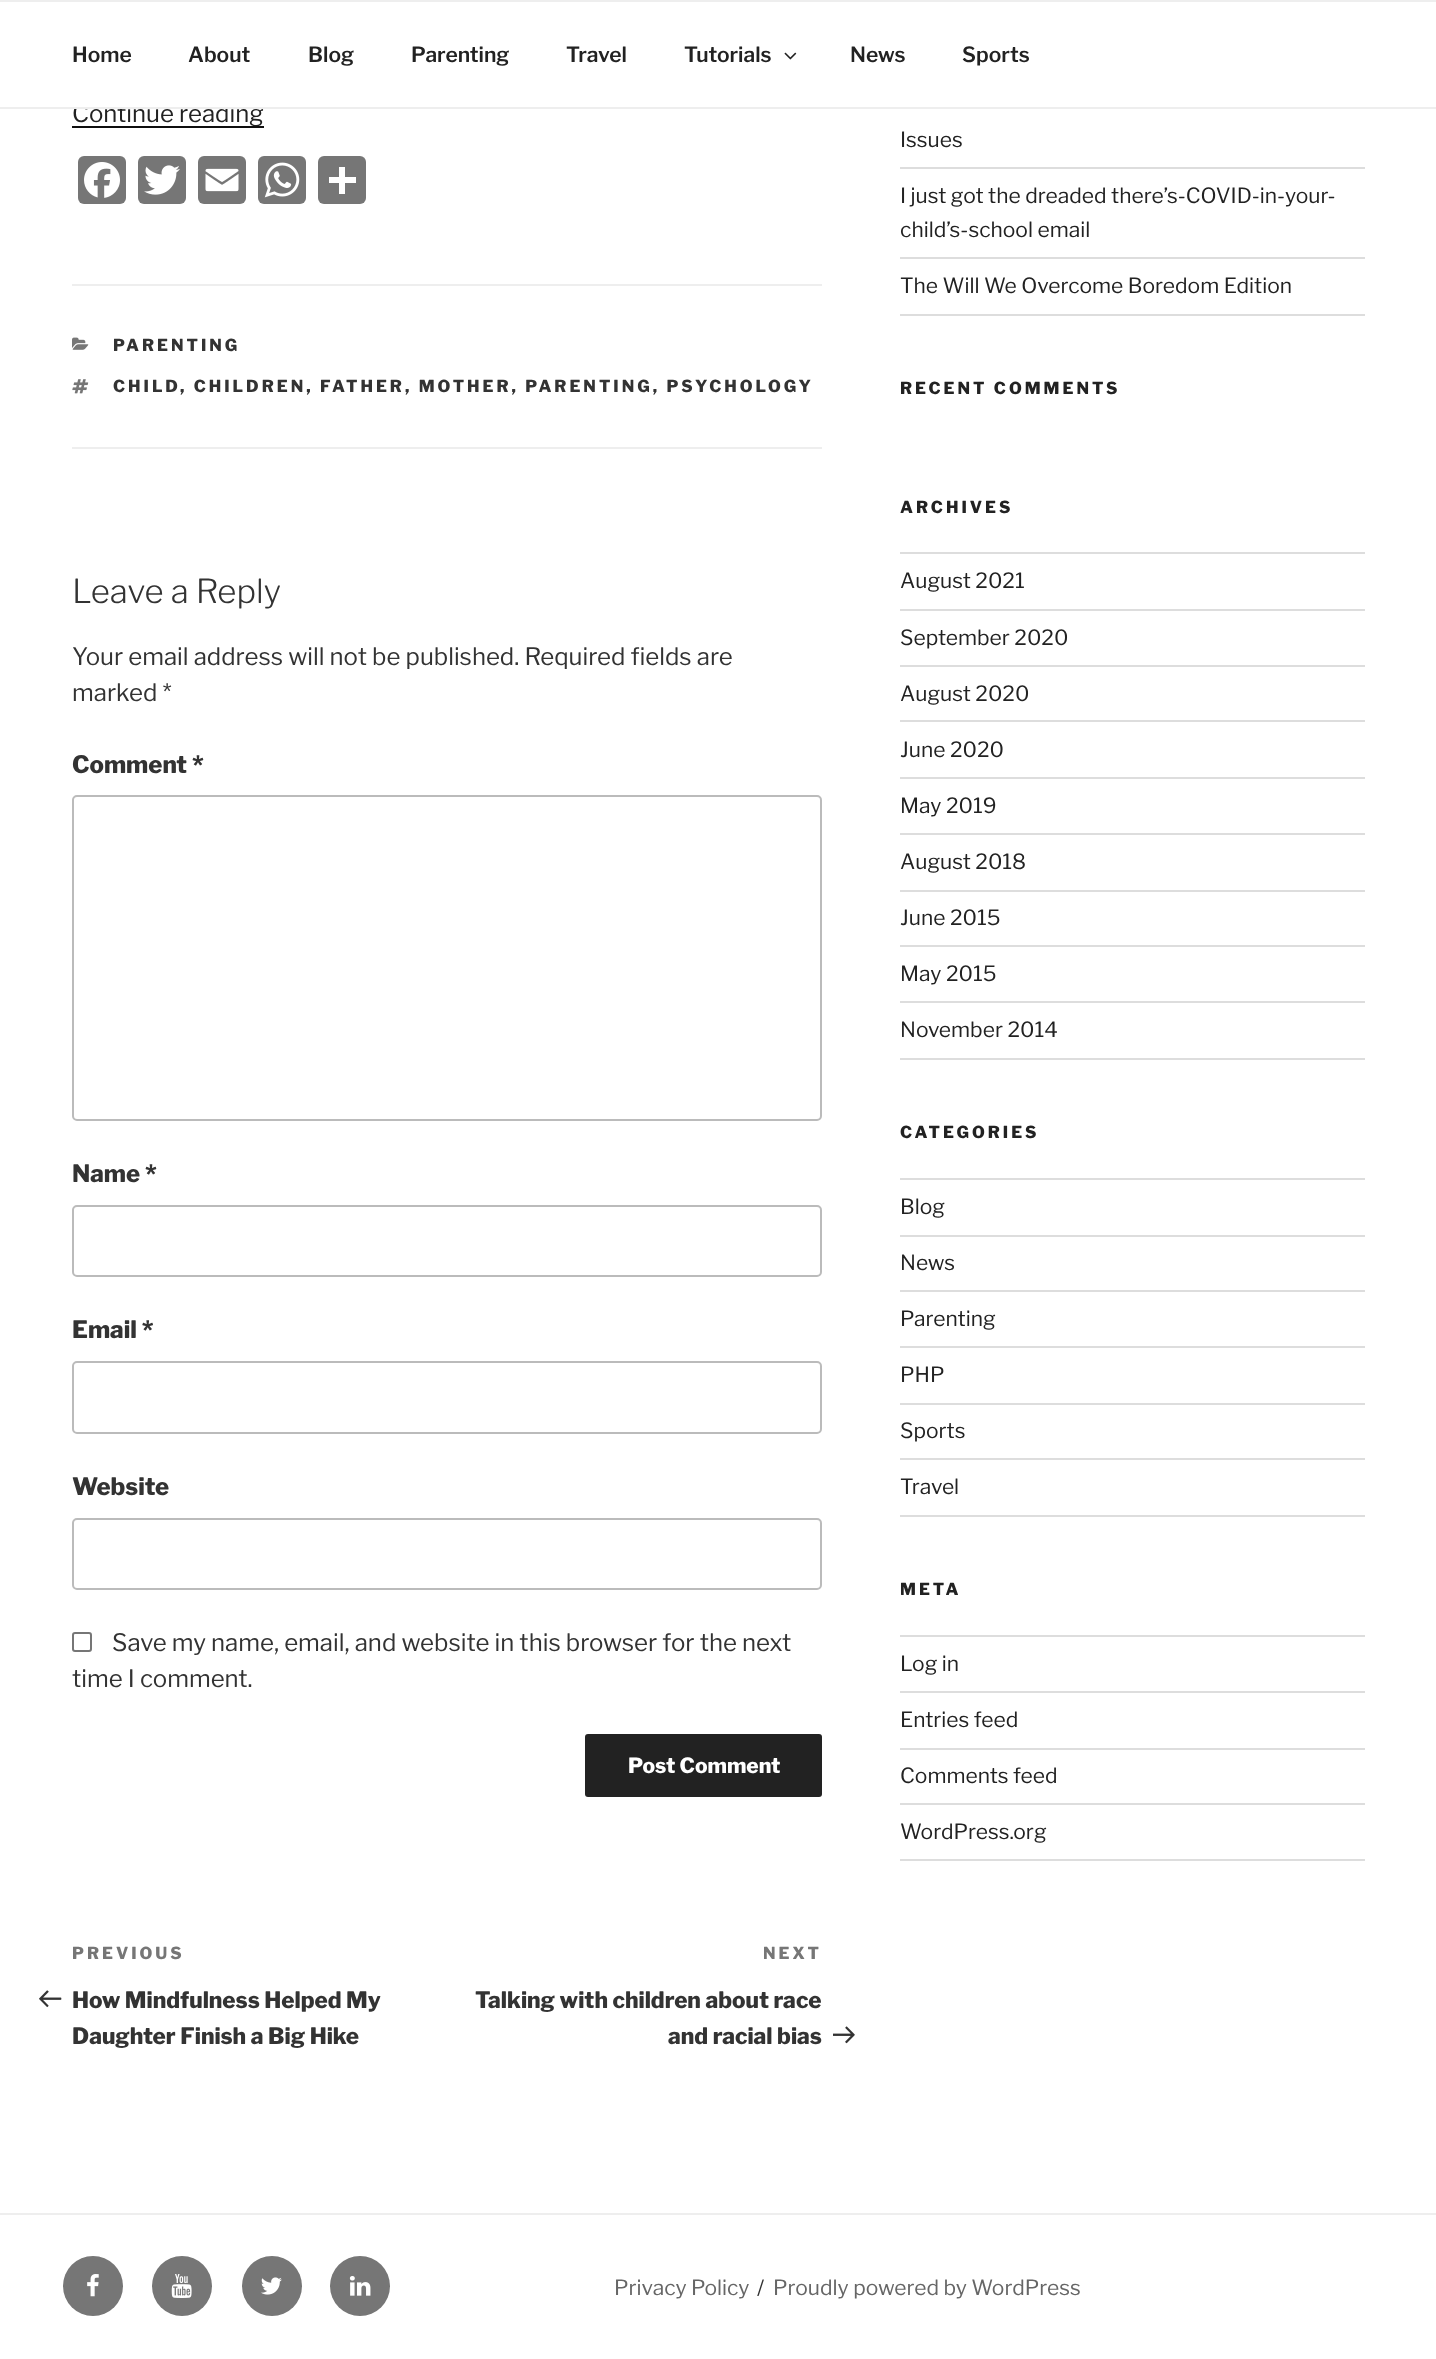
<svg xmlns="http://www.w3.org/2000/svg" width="1436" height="2359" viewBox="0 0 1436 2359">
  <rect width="100%" height="100%" fill="rgb(255,255,255)"/>
  <rect x="72" y="126" width="192" height="2" fill="rgb(15,15,15)"/>
  <text x="72" y="122" font-family="Libre Franklin" font-size="24" fill="rgb(34,34,34)">Continue reading</text>
  <rect x="75" y="103" width="159" height="4" fill="rgb(255,255,255)"/>
  <rect x="0" y="0" width="1436" height="2" fill="rgb(238,238,238)"/>
  <rect x="0" y="107" width="1436" height="2" fill="rgb(238,238,238)"/>
  <g font-family="Libre Franklin" font-size="21" font-weight="600" fill="rgb(34,34,34)">
    <text x="72" y="62">Home</text>
    <text x="188" y="62">About</text>
    <text x="308" y="62">Blog</text>
    <text x="411" y="62">Parenting</text>
    <text x="566" y="62">Travel</text>
    <text x="684" y="62">Tutorials</text>
  </g>
  <image x="784" y="52" width="13" height="8" href="pic1.png"/>
  <g font-family="Libre Franklin" font-size="21" font-weight="600" fill="rgb(34,34,34)">
    <text x="850" y="62">News</text>
    <text x="962" y="62">Sports</text>
  </g>
  <rect x="78" y="156" width="48" height="48" rx="6" fill="rgb(118,118,118)"/>
  <image x="84" y="162" width="36" height="36" href="pic2.png"/>
  <rect x="138" y="156" width="48" height="48" rx="6" fill="rgb(118,118,118)"/>
  <image x="144" y="165" width="36" height="30" href="pic3.png"/>
  <rect x="198" y="156" width="48" height="48" rx="6" fill="rgb(118,118,118)"/>
  <image x="205" y="168" width="34" height="24" href="pic4.png"/>
  <rect x="258" y="156" width="48" height="48" rx="6" fill="rgb(118,118,118)"/>
  <image x="264" y="162" width="36" height="36" href="pic5.png"/>
  <rect x="318" y="156" width="48" height="48" rx="6" fill="rgb(118,118,118)"/>
  <rect x="339" y="167" width="6" height="27" fill="rgb(255,255,255)"/>
  <rect x="329" y="177" width="27" height="6" fill="rgb(255,255,255)"/>
  <rect x="72" y="284" width="750" height="2" fill="rgb(238,238,238)"/>
  <rect x="72" y="447" width="750" height="2" fill="rgb(238,238,238)"/>
  <image x="72" y="337" width="17" height="13" href="pic6.png"/>
  <text x="113" y="351" font-family="Libre Franklin" font-size="16.5" font-weight="800" letter-spacing="3" fill="rgb(51,51,51)">PARENTING</text>
  <image x="72" y="379" width="17" height="15" href="pic7.png"/>
  <g font-family="Libre Franklin" font-size="16.5" font-weight="800" letter-spacing="3" fill="rgb(51,51,51)">
    <text x="113" y="392">CHILD</text>
    <text x="180" y="392">, CHILDREN, FATHER, MOTHER, PARENTING, PSYCHOLOGY</text>
  </g>
  <text x="72" y="603" font-family="Libre Franklin" font-size="33" font-weight="300" fill="rgb(51,51,51)">Leave a Reply</text>
  <g font-family="Libre Franklin" font-size="24" fill="rgb(51,51,51)">
    <text>
      <tspan x="72" y="665">Your email address will not be published. Required fields are</tspan>
      <tspan x="72" y="701">marked *</tspan>
    </text>
  </g>
  <text x="72" y="773" font-family="Libre Franklin" font-size="24" font-weight="800" fill="rgb(51,51,51)">Comment *</text>
  <rect x="73" y="796" width="748" height="324" rx="4" fill="none" stroke="rgb(187,187,187)" stroke-width="2"/>
  <text x="72" y="1182" font-family="Libre Franklin" font-size="24" font-weight="800" fill="rgb(51,51,51)">Name *</text>
  <rect x="73" y="1206" width="748" height="70" rx="4" fill="none" stroke="rgb(187,187,187)" stroke-width="2"/>
  <text x="72" y="1338" font-family="Libre Franklin" font-size="24" font-weight="800" fill="rgb(51,51,51)">Email *</text>
  <rect x="73" y="1362" width="748" height="71" rx="4" fill="none" stroke="rgb(187,187,187)" stroke-width="2"/>
  <text x="72" y="1495" font-family="Libre Franklin" font-size="24" font-weight="800" fill="rgb(51,51,51)">Website</text>
  <rect x="73" y="1519" width="748" height="70" rx="4" fill="none" stroke="rgb(187,187,187)" stroke-width="2"/>
  <rect x="73" y="1633" width="18" height="18" rx="2" fill="none" stroke="rgb(118,118,118)" stroke-width="2"/>
  <g font-family="Libre Franklin" font-size="24" fill="rgb(51,51,51)">
    <text x="112" y="1651">Save my name, email, and website in this browser for the next</text>
    <text x="72" y="1687">time I comment.</text>
  </g>
  <rect x="585" y="1734" width="237" height="63" rx="3" fill="rgb(34,34,34)"/>
  <text x="628" y="1773" font-family="Libre Franklin" font-size="21" font-weight="800" fill="rgb(255,255,255)">Post Comment</text>
  <text x="72" y="1959" font-family="Libre Franklin" font-size="16.5" font-weight="800" letter-spacing="3" fill="rgb(118,118,118)">PREVIOUS</text>
  <image x="39" y="1990" width="23" height="18" href="pic8.png"/>
  <g font-family="Libre Franklin" font-size="22.5" font-weight="800" fill="rgb(51,51,51)">
    <text>
      <tspan x="72" y="2008">How Mindfulness Helped My</tspan>
      <tspan x="72" y="2044">Daughter Finish a Big Hike</tspan>
    </text>
  </g>
  <text x="763" y="1959" font-family="Libre Franklin" font-size="16.5" font-weight="800" letter-spacing="3" fill="rgb(118,118,118)">NEXT</text>
  <g font-family="Libre Franklin" font-size="22.5" font-weight="800" fill="rgb(51,51,51)">
    <text x="475" y="2008">Talking with children about race</text>
    <text x="668" y="2044">and racial bias</text>
  </g>
  <image x="833" y="2026" width="22" height="18" href="pic9.png"/>
  <rect x="900" y="167" width="465" height="2" fill="rgb(221,221,221)"/>
  <text x="900" y="147" font-family="Libre Franklin" font-size="21" fill="rgb(34,34,34)">Issues</text>
  <rect x="900" y="257" width="465" height="2" fill="rgb(221,221,221)"/>
  <g font-family="Libre Franklin" font-size="21" fill="rgb(34,34,34)">
    <text>
      <tspan x="900" y="203">I just got the dreaded there’s-COVID-in-your-</tspan>
      <tspan x="900" y="237">child’s-school email</tspan>
    </text>
  </g>
  <rect x="900" y="314" width="465" height="2" fill="rgb(221,221,221)"/>
  <text x="900" y="293" font-family="Libre Franklin" font-size="21" fill="rgb(34,34,34)">The Will We Overcome Boredom Edition</text>
  <g font-family="Libre Franklin" font-size="16.5" font-weight="800" letter-spacing="3" fill="rgb(34,34,34)">
    <text x="900" y="394">RECENT COMMENTS</text>
    <text x="900" y="513">ARCHIVES</text>
  </g>
  <rect x="900" y="552" width="465" height="2" fill="rgb(221,221,221)"/>
  <rect x="900" y="609" width="465" height="2" fill="rgb(221,221,221)"/>
  <text x="900" y="588" font-family="Libre Franklin" font-size="21" fill="rgb(34,34,34)">August 2021</text>
  <rect x="900" y="665" width="465" height="2" fill="rgb(221,221,221)"/>
  <text x="900" y="645" font-family="Libre Franklin" font-size="21" fill="rgb(34,34,34)">September 2020</text>
  <rect x="900" y="720" width="465" height="2" fill="rgb(221,221,221)"/>
  <text x="900" y="701" font-family="Libre Franklin" font-size="21" fill="rgb(34,34,34)">August 2020</text>
  <rect x="900" y="777" width="465" height="2" fill="rgb(221,221,221)"/>
  <text x="900" y="757" font-family="Libre Franklin" font-size="21" fill="rgb(34,34,34)">June 2020</text>
  <rect x="900" y="833" width="465" height="2" fill="rgb(221,221,221)"/>
  <text x="900" y="813" font-family="Libre Franklin" font-size="21" fill="rgb(34,34,34)">May 2019</text>
  <rect x="900" y="890" width="465" height="2" fill="rgb(221,221,221)"/>
  <text x="900" y="869" font-family="Libre Franklin" font-size="21" fill="rgb(34,34,34)">August 2018</text>
  <rect x="900" y="945" width="465" height="2" fill="rgb(221,221,221)"/>
  <text x="900" y="925" font-family="Libre Franklin" font-size="21" fill="rgb(34,34,34)">June 2015</text>
  <rect x="900" y="1001" width="465" height="2" fill="rgb(221,221,221)"/>
  <text x="900" y="981" font-family="Libre Franklin" font-size="21" fill="rgb(34,34,34)">May 2015</text>
  <rect x="900" y="1058" width="465" height="2" fill="rgb(221,221,221)"/>
  <text x="900" y="1037" font-family="Libre Franklin" font-size="21" fill="rgb(34,34,34)">November 2014</text>
  <text x="900" y="1138" font-family="Libre Franklin" font-size="16.5" font-weight="800" letter-spacing="3" fill="rgb(34,34,34)">CATEGORIES</text>
  <rect x="900" y="1178" width="465" height="2" fill="rgb(221,221,221)"/>
  <rect x="900" y="1235" width="465" height="2" fill="rgb(221,221,221)"/>
  <text x="900" y="1214" font-family="Libre Franklin" font-size="21" fill="rgb(34,34,34)">Blog</text>
  <rect x="900" y="1290" width="465" height="2" fill="rgb(221,221,221)"/>
  <text x="900" y="1270" font-family="Libre Franklin" font-size="21" fill="rgb(34,34,34)">News</text>
  <rect x="900" y="1346" width="465" height="2" fill="rgb(221,221,221)"/>
  <text x="900" y="1326" font-family="Libre Franklin" font-size="21" fill="rgb(34,34,34)">Parenting</text>
  <rect x="900" y="1403" width="465" height="2" fill="rgb(221,221,221)"/>
  <text x="900" y="1382" font-family="Libre Franklin" font-size="21" fill="rgb(34,34,34)">PHP</text>
  <rect x="900" y="1458" width="465" height="2" fill="rgb(221,221,221)"/>
  <text x="900" y="1438" font-family="Libre Franklin" font-size="21" fill="rgb(34,34,34)">Sports</text>
  <rect x="900" y="1515" width="465" height="2" fill="rgb(221,221,221)"/>
  <text x="900" y="1494" font-family="Libre Franklin" font-size="21" fill="rgb(34,34,34)">Travel</text>
  <text x="900" y="1595" font-family="Libre Franklin" font-size="16.5" font-weight="800" letter-spacing="3" fill="rgb(34,34,34)">META</text>
  <rect x="900" y="1635" width="465" height="2" fill="rgb(221,221,221)"/>
  <rect x="900" y="1691" width="465" height="2" fill="rgb(221,221,221)"/>
  <text x="900" y="1671" font-family="Libre Franklin" font-size="21" fill="rgb(34,34,34)">Log in</text>
  <rect x="900" y="1748" width="465" height="2" fill="rgb(221,221,221)"/>
  <text x="900" y="1727" font-family="Libre Franklin" font-size="21" fill="rgb(34,34,34)">Entries feed</text>
  <rect x="900" y="1803" width="465" height="2" fill="rgb(221,221,221)"/>
  <text x="900" y="1783" font-family="Libre Franklin" font-size="21" fill="rgb(34,34,34)">Comments feed</text>
  <rect x="900" y="1859" width="465" height="2" fill="rgb(221,221,221)"/>
  <text x="900" y="1839" font-family="Libre Franklin" font-size="21" fill="rgb(34,34,34)">WordPress.org</text>
  <rect x="0" y="2213" width="1436" height="2" fill="rgb(238,238,238)"/>
  <circle cx="93" cy="2286" r="30" fill="rgb(118,118,118)"/>
  <image x="87" y="2274" width="12" height="23" href="pic10.png"/>
  <circle cx="182" cy="2286" r="30" fill="rgb(118,118,118)"/>
  <image x="171" y="2274" width="21" height="24" href="pic11.png"/>
  <circle cx="272" cy="2286" r="30" fill="rgb(118,118,118)"/>
  <image x="261" y="2277" width="21" height="18" href="pic12.png"/>
  <circle cx="360" cy="2286" r="30" fill="rgb(118,118,118)"/>
  <image x="349" y="2276" width="22" height="20" href="pic13.png"/>
  <text x="614" y="2295" font-family="Libre Franklin" font-size="21" fill="rgb(102,102,102)">Privacy Policy</text>
  <text x="757" y="2295" font-family="Libre Franklin" font-size="21" fill="rgb(51,51,51)">/</text>
  <text x="773" y="2295" font-family="Libre Franklin" font-size="21" fill="rgb(102,102,102)">Proudly powered by WordPress</text>
</svg>
